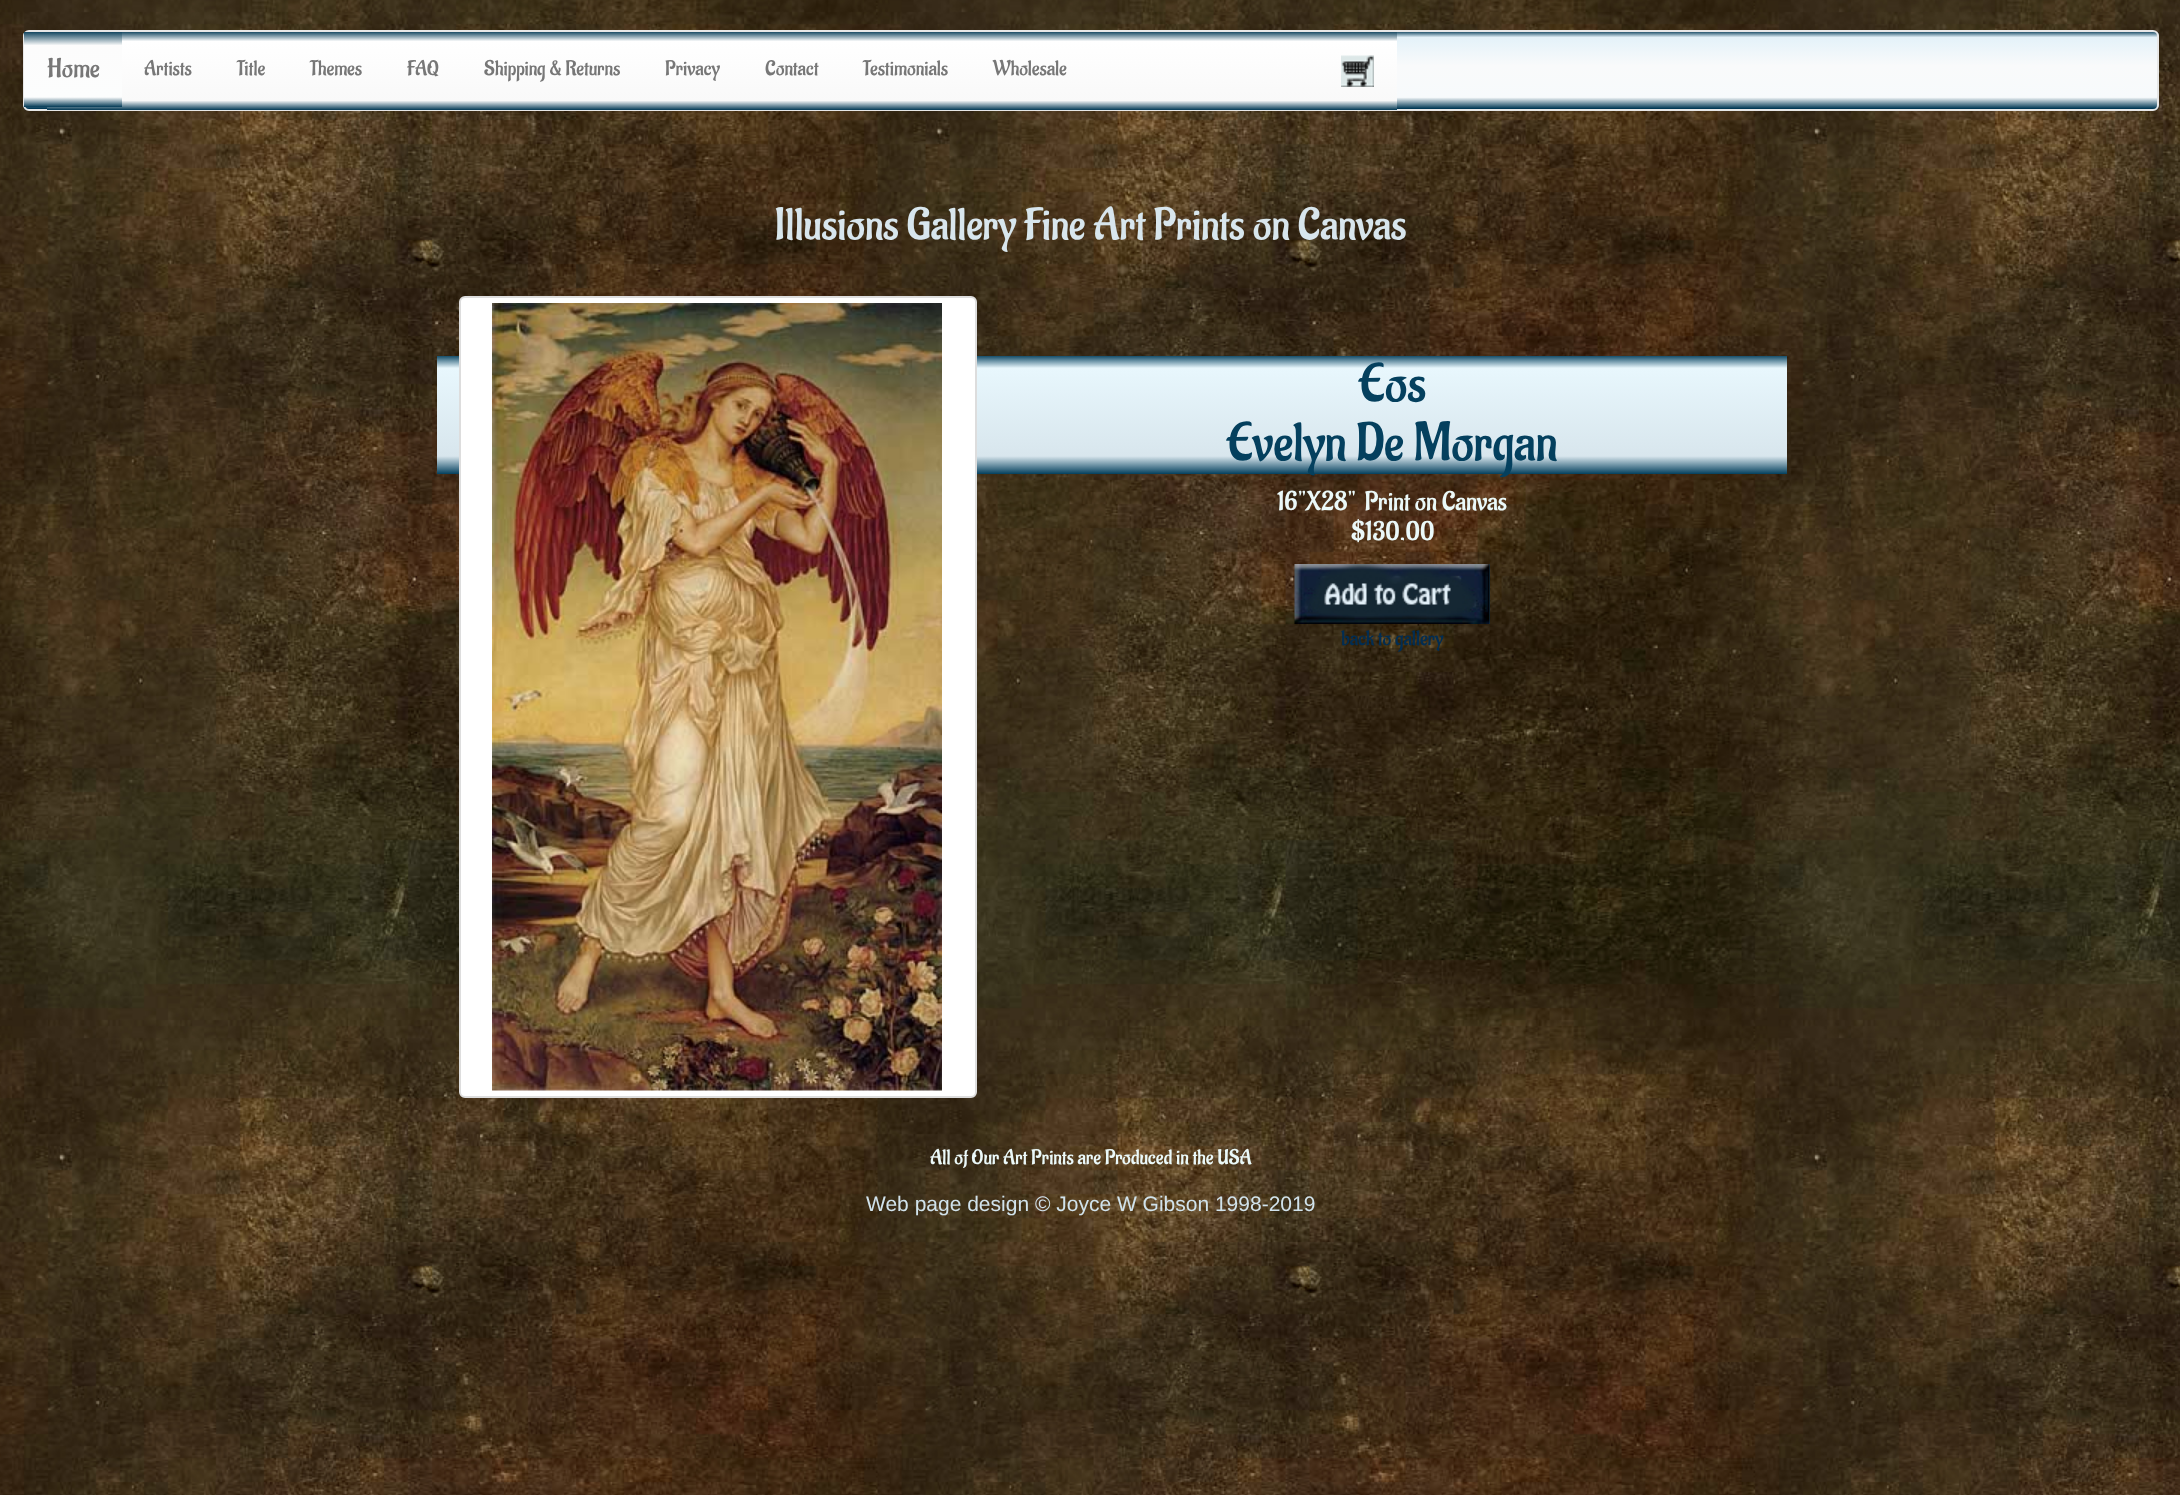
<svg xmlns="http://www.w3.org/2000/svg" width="2180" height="1495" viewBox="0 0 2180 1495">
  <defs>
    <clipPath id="clip1"><rect x="23" y="30" width="2136" height="81" rx="6"/></clipPath>
    <linearGradient id="g1" gradientUnits="userSpaceOnUse" x1="1091" y1="31" x2="1091" y2="110"><stop offset="0" stop-color="rgb(2,57,85)"/><stop offset="0.08" stop-color="rgb(228,242,249)"/><stop offset="0.44" stop-color="rgb(249,250,251)"/><stop offset="0.84" stop-color="rgb(247,250,252)"/><stop offset="0.98" stop-color="rgb(2,57,85)"/></linearGradient>
    <linearGradient id="g2" gradientUnits="userSpaceOnUse" x1="722" y1="31" x2="722" y2="110"><stop offset="0" stop-color="rgb(2,57,85)"/><stop offset="0.13" stop-color="rgb(255,255,255)"/><stop offset="0.88" stop-color="rgb(249,249,249)"/><stop offset="1" stop-color="rgb(2,57,85)"/></linearGradient>
    <linearGradient id="g3" gradientUnits="userSpaceOnUse" x1="73" y1="31" x2="73" y2="107"><stop offset="0" stop-color="rgb(2,57,85)"/><stop offset="0.19" stop-color="rgb(252,252,252)"/><stop offset="0.87" stop-color="rgb(252,253,253)"/><stop offset="1" stop-color="rgb(2,57,85)"/></linearGradient>
    <linearGradient id="g4" gradientUnits="userSpaceOnUse" x1="1112" y1="355" x2="1112" y2="474"><stop offset="0" stop-color="rgb(4,64,94)"/><stop offset="0.11" stop-color="rgb(232,247,253)"/><stop offset="0.85" stop-color="rgb(216,230,237)"/><stop offset="1" stop-color="rgb(4,64,94)"/></linearGradient>
  </defs>
  <rect width="100%" height="100%" fill="rgb(255,255,255)"/>
  <image x="0" y="0" width="2180" height="1495" href="pic1.png"/>
  <g clip-path="url(#clip1)">
    <rect x="23" y="32" width="2136" height="78" fill="url(#g1)"/>
  </g>
  <rect x="24" y="31" width="2134" height="79" rx="5" fill="none" stroke="rgb(231,231,231)" stroke-width="2"/>
  <rect x="47" y="32" width="1350" height="78" fill="url(#g2)"/>
  <rect x="24" y="32" width="98" height="75" fill="url(#g3)"/>
  <text x="47" y="77" font-family="Aladin" font-size="27" fill="rgb(119,119,119)">Home</text>
  <g font-family="Aladin" font-size="21" fill="rgb(119,119,119)">
    <text x="144" y="75">Artists</text>
    <text x="237" y="75">Title</text>
    <text x="310" y="75">Themes</text>
    <text x="407" y="75">FAQ</text>
    <text x="484" y="75">Shipping &amp; Returns</text>
    <text x="665" y="75">Privacy</text>
    <text x="765" y="75">Contact</text>
    <text x="863" y="75">Testimonials</text>
    <text x="993" y="75">Wholesale</text>
  </g>
  <image x="1341" y="55" width="33" height="32" href="pic2.png"/>
  <text x="774" y="239" font-family="Aladin" font-size="45" fill="rgb(216,230,237)">Illusions Gallery Fine Art Prints on Canvas</text>
  <rect x="437" y="356" width="1350" height="118" fill="url(#g4)"/>
  <rect x="460" y="297" width="516" height="800" rx="5" fill="rgb(255,255,255)" stroke="rgb(221,221,221)" stroke-width="2"/>
  <image x="492" y="303" width="450" height="788" href="pic3.png"/>
  <g font-family="Aladin" font-size="54" fill="rgb(4,64,94)">
    <text x="1359" y="401">Eos</text>
    <text x="1227" y="460">Evelyn De Morgan</text>
  </g>
  <g font-family="Aladin" font-size="27" fill="rgb(235,249,249)">
    <text x="1277" y="510" xml:space="preserve">16"X28"  Print on Canvas</text>
    <text x="1351" y="540">$130.00</text>
  </g>
  <rect x="1489" y="564" width="1" height="60" fill="rgb(31,61,75)"/>
  <image x="1294" y="564" width="196" height="60" href="pic4.png"/>
  <text x="1341" y="645" font-family="Aladin" font-size="21" fill="rgb(2,45,82)">back to gallery</text>
  <text x="930" y="1164" font-family="Aladin" font-size="21" fill="rgb(235,249,249)">All of Our Art Prints are Produced in the USA</text>
  <text x="866" y="1211" font-family="Liberation Sans" font-size="21" fill="rgb(209,227,236)">Web page design © Joyce W Gibson 1998-2019</text>
</svg>
